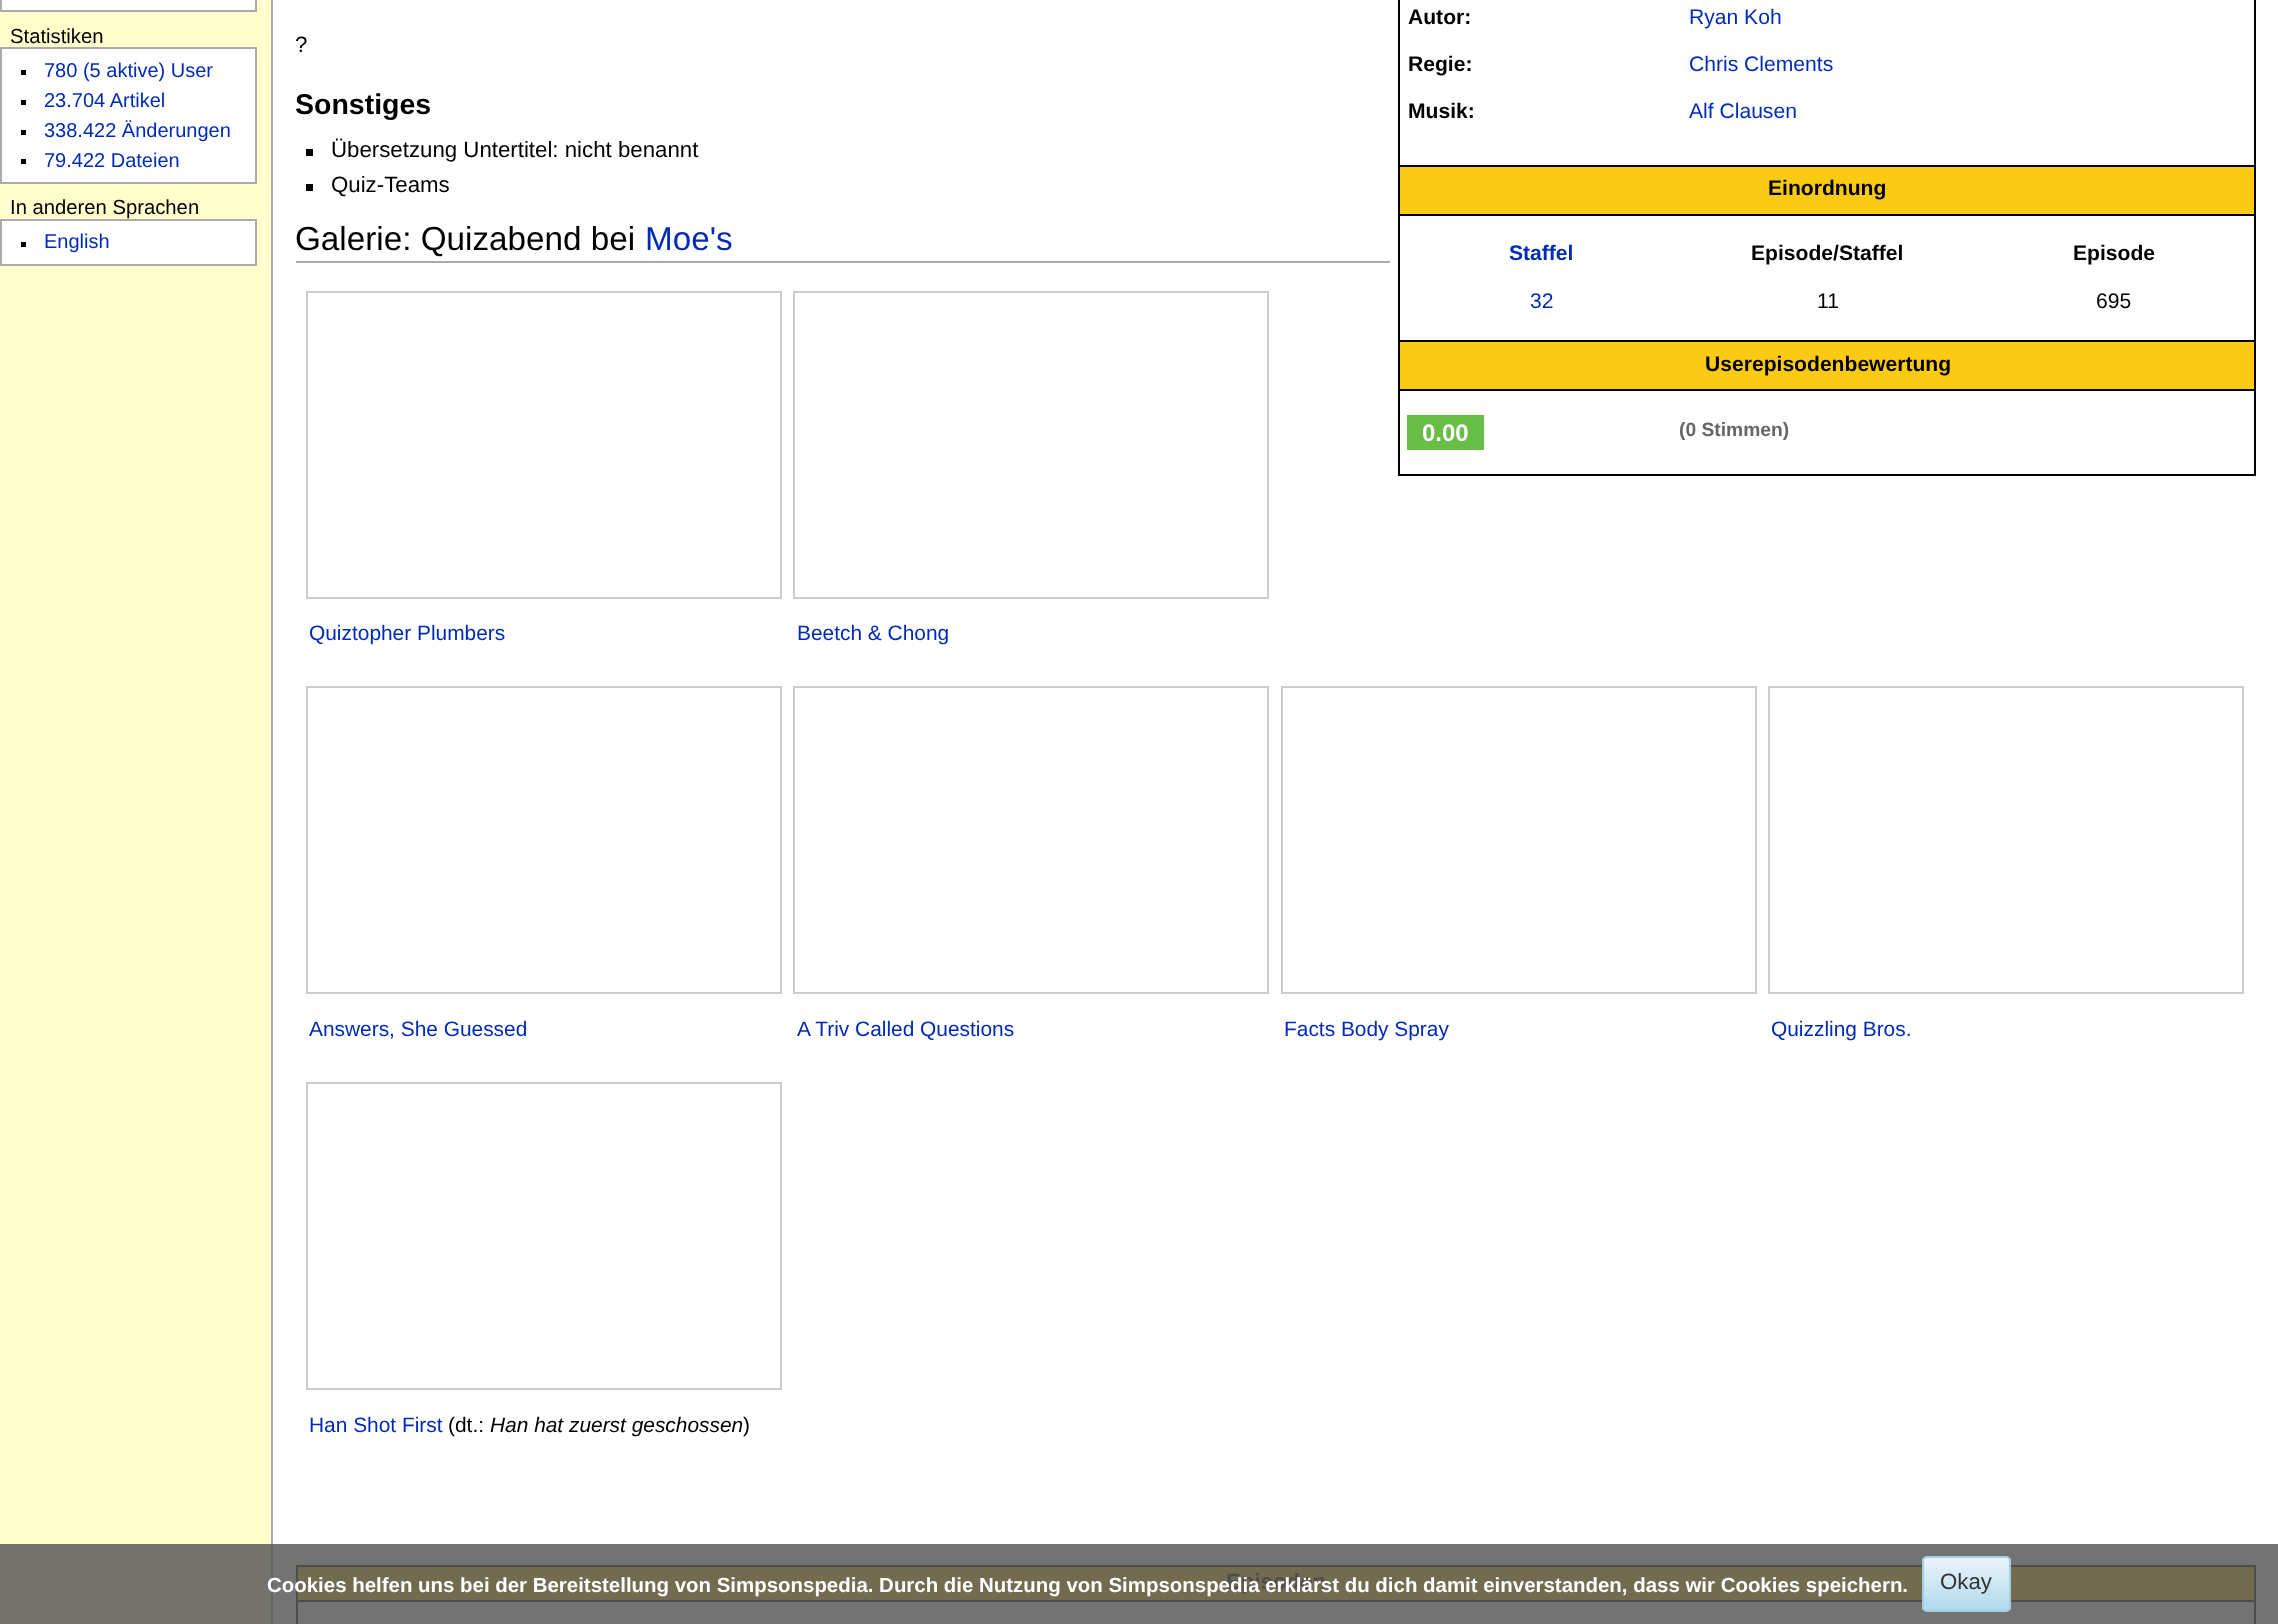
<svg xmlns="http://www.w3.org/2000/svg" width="2278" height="1624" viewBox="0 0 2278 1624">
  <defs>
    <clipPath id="clip1"><rect x="1922" y="1556" width="89" height="56" rx="5"/></clipPath>
    <linearGradient id="g1" gradientUnits="userSpaceOnUse" x1="1966" y1="1558" x2="1966" y2="1610"><stop offset="0" stop-color="rgb(234,244,250)"/><stop offset="1" stop-color="rgb(176,217,238)"/></linearGradient>
  </defs>
  <rect width="100%" height="100%" fill="rgb(255,255,204)"/>
  <rect x="0" y="1544" width="271" height="80" fill="rgb(115,115,107)"/>
  <rect x="1" y="-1" width="255" height="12" fill="rgb(255,255,255)" stroke="rgb(170,170,170)" stroke-width="2"/>
  <text x="10" y="43" font-family="Liberation Sans" font-size="20.25" fill="rgb(0,0,0)">Statistiken</text>
  <rect x="1" y="48" width="255" height="135" fill="rgb(255,255,255)" stroke="rgb(170,170,170)" stroke-width="2"/>
  <rect x="21" y="70" width="5" height="5" fill="rgb(0,0,0)"/>
  <text x="44" y="77" font-family="Liberation Sans" font-size="20" fill="rgb(0,43,184)">780 (5 aktive) User</text>
  <rect x="21" y="100" width="5" height="5" fill="rgb(0,0,0)"/>
  <text x="44" y="107" font-family="Liberation Sans" font-size="20" fill="rgb(0,43,184)">23.704 Artikel</text>
  <rect x="21" y="130" width="5" height="5" fill="rgb(0,0,0)"/>
  <text x="44" y="137" font-family="Liberation Sans" font-size="20" fill="rgb(0,43,184)">338.422 Änderungen</text>
  <rect x="21" y="159" width="5" height="5" fill="rgb(0,0,0)"/>
  <text x="44" y="167" font-family="Liberation Sans" font-size="20" fill="rgb(0,43,184)">79.422 Dateien</text>
  <text x="10" y="214" font-family="Liberation Sans" font-size="20.25" fill="rgb(0,0,0)">In anderen Sprachen</text>
  <rect x="1" y="220" width="255" height="45" fill="rgb(255,255,255)" stroke="rgb(170,170,170)" stroke-width="2"/>
  <rect x="21" y="242" width="5" height="5" fill="rgb(0,0,0)"/>
  <text x="44" y="248" font-family="Liberation Sans" font-size="20" fill="rgb(0,43,184)">English</text>
  <rect x="273" y="0" width="2005" height="1544" fill="rgb(255,255,255)"/>
  <rect x="273" y="1544" width="2005" height="80" fill="rgb(115,115,115)"/>
  <rect x="271" y="0" width="2" height="1544" fill="rgb(170,170,170)"/>
  <rect x="271" y="1544" width="2" height="80" fill="rgb(102,102,102)"/>
  <text x="295" y="52" font-family="Liberation Sans" font-size="22.25" fill="rgb(0,0,0)">?</text>
  <text x="1408" y="24" font-family="Liberation Sans" font-size="21.1" font-weight="bold" fill="rgb(0,0,0)">Autor:</text>
  <text x="1689" y="24" font-family="Liberation Sans" font-size="21.1" fill="rgb(0,43,184)">Ryan Koh</text>
  <text x="1408" y="71" font-family="Liberation Sans" font-size="21.1" font-weight="bold" fill="rgb(0,0,0)">Regie:</text>
  <text x="1689" y="71" font-family="Liberation Sans" font-size="21.1" fill="rgb(0,43,184)">Chris Clements</text>
  <text x="1408" y="118" font-family="Liberation Sans" font-size="21.1" font-weight="bold" fill="rgb(0,0,0)">Musik:</text>
  <text x="1689" y="118" font-family="Liberation Sans" font-size="21.1" fill="rgb(0,43,184)">Alf Clausen</text>
  <rect x="1400" y="167" width="854" height="47" fill="rgb(251,203,20)"/>
  <rect x="1398" y="165" width="858" height="2" fill="rgb(0,0,0)"/>
  <rect x="1398" y="340" width="858" height="2" fill="rgb(0,0,0)"/>
  <rect x="2254" y="389" width="2" height="87" fill="rgb(0,0,0)"/>
  <rect x="2254" y="214" width="2" height="176" fill="rgb(0,0,0)"/>
  <rect x="2254" y="0" width="2" height="215" fill="rgb(0,0,0)"/>
  <rect x="1398" y="474" width="858" height="2" fill="rgb(0,0,0)"/>
  <rect x="1398" y="389" width="2" height="87" fill="rgb(0,0,0)"/>
  <rect x="1398" y="389" width="858" height="2" fill="rgb(0,0,0)"/>
  <rect x="1398" y="214" width="2" height="176" fill="rgb(0,0,0)"/>
  <rect x="1398" y="214" width="858" height="2" fill="rgb(0,0,0)"/>
  <rect x="1398" y="0" width="2" height="215" fill="rgb(0,0,0)"/>
  <text x="1768" y="195" font-family="Liberation Sans" font-size="21.1" font-weight="bold" fill="rgb(0,0,0)">Einordnung</text>
  <text x="1509" y="260" font-family="Liberation Sans" font-size="21.1" font-weight="bold" fill="rgb(0,43,184)">Staffel</text>
  <g font-family="Liberation Sans" font-size="21.1" font-weight="bold" fill="rgb(0,0,0)">
    <text x="1751" y="260">Episode/Staffel</text>
    <text x="2073" y="260">Episode</text>
  </g>
  <text x="1530" y="308" font-family="Liberation Sans" font-size="21.1" fill="rgb(0,43,184)">32</text>
  <g font-family="Liberation Sans" font-size="21.1" fill="rgb(0,0,0)">
    <text x="1817" y="308">11</text>
    <text x="2096" y="308">695</text>
  </g>
  <rect x="1400" y="342" width="854" height="47" fill="rgb(251,203,20)"/>
  <text x="1705" y="371" font-family="Liberation Sans" font-size="21.1" font-weight="bold" fill="rgb(0,0,0)">Userepisodenbewertung</text>
  <rect x="1407" y="415" width="77" height="35" fill="rgb(104,189,70)"/>
  <text x="1422" y="441" font-family="Liberation Sans" font-size="24" font-weight="bold" fill="rgb(255,255,255)">0.00</text>
  <text x="1679" y="436" font-family="Liberation Sans" font-size="19.25" font-weight="bold" fill="rgb(102,102,102)">(0 Stimmen)</text>
  <text x="295" y="114" font-family="Liberation Sans" font-size="28.5" font-weight="bold" fill="rgb(0,0,0)">Sonstiges</text>
  <rect x="306" y="149" width="7" height="7" fill="rgb(0,0,0)"/>
  <text x="331" y="157" font-family="Liberation Sans" font-size="22.25" fill="rgb(0,0,0)">Übersetzung Untertitel: nicht benannt</text>
  <rect x="306" y="184" width="7" height="7" fill="rgb(0,0,0)"/>
  <text x="331" y="192" font-family="Liberation Sans" font-size="22.25" fill="rgb(0,0,0)">Quiz-Teams</text>
  <rect x="296" y="261" width="1094" height="2" fill="rgb(170,170,170)"/>
  <text x="295" y="250" font-family="Liberation Sans" font-size="33.25" fill="rgb(0,0,0)">Galerie: Quizabend bei</text>
  <text x="645" y="250" font-family="Liberation Sans" font-size="33.25" fill="rgb(0,43,184)">Moe's</text>
  <rect x="307" y="292" width="474" height="306" fill="none" stroke="rgb(204,204,204)" stroke-width="2"/>
  <text x="309" y="640" font-family="Liberation Sans" font-size="20.9" fill="rgb(0,43,184)">Quiztopher Plumbers</text>
  <rect x="794" y="292" width="474" height="306" fill="none" stroke="rgb(204,204,204)" stroke-width="2"/>
  <text x="797" y="640" font-family="Liberation Sans" font-size="20.9" fill="rgb(0,43,184)">Beetch &amp; Chong</text>
  <rect x="307" y="687" width="474" height="306" fill="none" stroke="rgb(204,204,204)" stroke-width="2"/>
  <text x="309" y="1036" font-family="Liberation Sans" font-size="20.9" fill="rgb(0,43,184)">Answers, She Guessed</text>
  <rect x="794" y="687" width="474" height="306" fill="none" stroke="rgb(204,204,204)" stroke-width="2"/>
  <text x="797" y="1036" font-family="Liberation Sans" font-size="20.9" fill="rgb(0,43,184)">A Triv Called Questions</text>
  <rect x="1282" y="687" width="474" height="306" fill="none" stroke="rgb(204,204,204)" stroke-width="2"/>
  <text x="1284" y="1036" font-family="Liberation Sans" font-size="20.9" fill="rgb(0,43,184)">Facts Body Spray</text>
  <rect x="1769" y="687" width="474" height="306" fill="none" stroke="rgb(204,204,204)" stroke-width="2"/>
  <text x="1771" y="1036" font-family="Liberation Sans" font-size="20.9" fill="rgb(0,43,184)">Quizzling Bros.</text>
  <rect x="307" y="1083" width="474" height="306" fill="none" stroke="rgb(204,204,204)" stroke-width="2"/>
  <text x="309" y="1432" font-family="Liberation Sans" font-size="20.9" fill="rgb(0,43,184)">Han Shot First</text>
  <text x="448" y="1432" font-family="Liberation Sans" font-size="20.9" fill="rgb(0,0,0)">(dt.:</text>
  <text x="490" y="1432" font-family="Liberation Sans" font-size="20.9" font-style="italic" fill="rgb(0,0,0)">Han hat zuerst geschossen</text>
  <text x="743" y="1432" font-family="Liberation Sans" font-size="20.9" fill="rgb(0,0,0)">)</text>
  <rect x="296" y="1565" width="1960" height="2" fill="rgb(77,77,77)"/>
  <rect x="2254" y="1565" width="2" height="59" fill="rgb(77,77,77)"/>
  <rect x="296" y="1565" width="2" height="59" fill="rgb(77,77,77)"/>
  <rect x="298" y="1567" width="1956" height="33" fill="rgb(114,107,80)"/>
  <text x="1226" y="1589" font-family="Liberation Sans" font-size="22.25" font-weight="bold" fill="rgb(77,77,77)">Episoden</text>
  <rect x="296" y="1600" width="1960" height="2" fill="rgb(77,77,77)"/>
  <text x="267" y="1592" font-family="Liberation Sans" font-size="20.45" font-weight="bold" fill="rgb(255,255,255)">Cookies helfen uns bei der Bereitstellung von Simpsonspedia. Durch die Nutzung von Simpsonspedia erklärst du dich damit einverstanden, dass wir Cookies speichern.</text>
  <g clip-path="url(#clip1)">
    <rect x="1922" y="1558" width="89" height="52" fill="url(#g1)"/>
  </g>
  <rect x="1923" y="1557" width="87" height="54" rx="4" fill="none" stroke="rgb(166,206,225)" stroke-width="2"/>
  <text x="1940" y="1589" font-family="Liberation Sans" font-size="22.25" fill="rgb(51,51,51)">Okay</text>
</svg>
